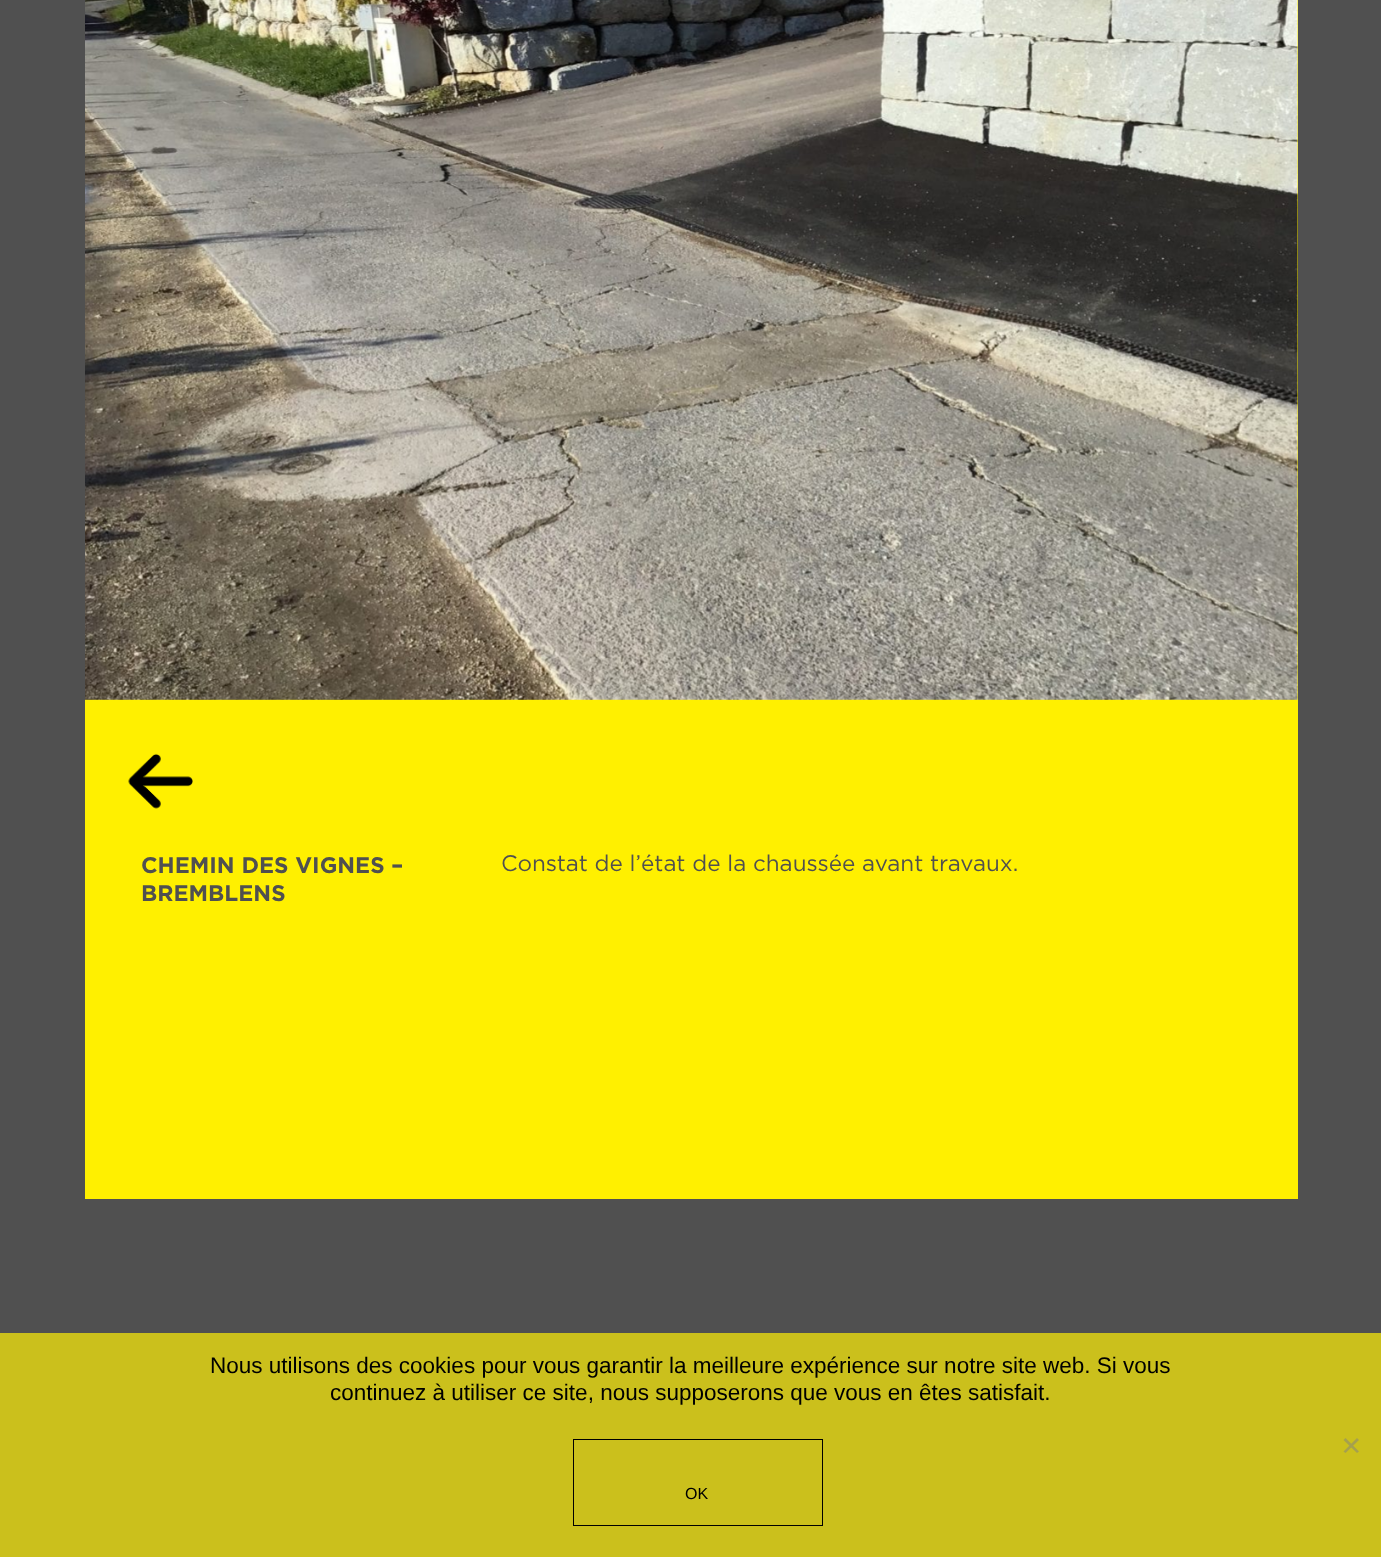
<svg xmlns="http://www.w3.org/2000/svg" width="1381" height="1557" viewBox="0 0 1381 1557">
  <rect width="100%" height="100%" fill="rgb(80,80,80)"/>
  <rect x="85" y="0" width="1213" height="1199" fill="rgb(255,240,0)"/>
  <image x="85" y="0" width="1213" height="700" href="pic1.png"/>
  <image x="128" y="753" width="65" height="56" href="pic2.png"/>
  <g font-family="Gotham" font-size="22.5" font-weight="bold" fill="rgb(80,80,80)">
    <text>
      <tspan x="141" y="873">CHEMIN DES VIGNES –</tspan>
      <tspan x="141" y="901">BREMBLENS</tspan>
    </text>
  </g>
  <text x="501" y="871" font-family="Gotham" font-size="22.5" fill="rgb(80,80,80)">Constat de l’état de la chaussée avant travaux.</text>
  <rect x="0" y="1333" width="1381" height="224" fill="rgb(203,192,28)"/>
  <g font-family="Liberation Sans" font-size="22.5" fill="rgb(0,0,0)">
    <text x="210" y="1373">Nous utilisons des cookies pour vous garantir la meilleure expérience sur notre site web. Si vous</text>
    <text x="330" y="1400">continuez à utiliser ce site, nous supposerons que vous en êtes satisfait.</text>
  </g>
  <path d="M1357 1438L1359 1440L1345.5 1453L1343.5 1451.5Z" fill="rgb(166,160,78)"/>
  <path d="M1343.5 1440L1345.5 1438L1359 1451.5L1357 1453Z" fill="rgb(166,160,78)"/>
  <rect x="573.5" y="1439.5" width="249" height="86" fill="none" stroke="rgb(0,0,0)"/>
  <text x="685" y="1499" font-family="Liberation Sans" font-size="16" fill="rgb(0,0,0)">OK</text>
</svg>
